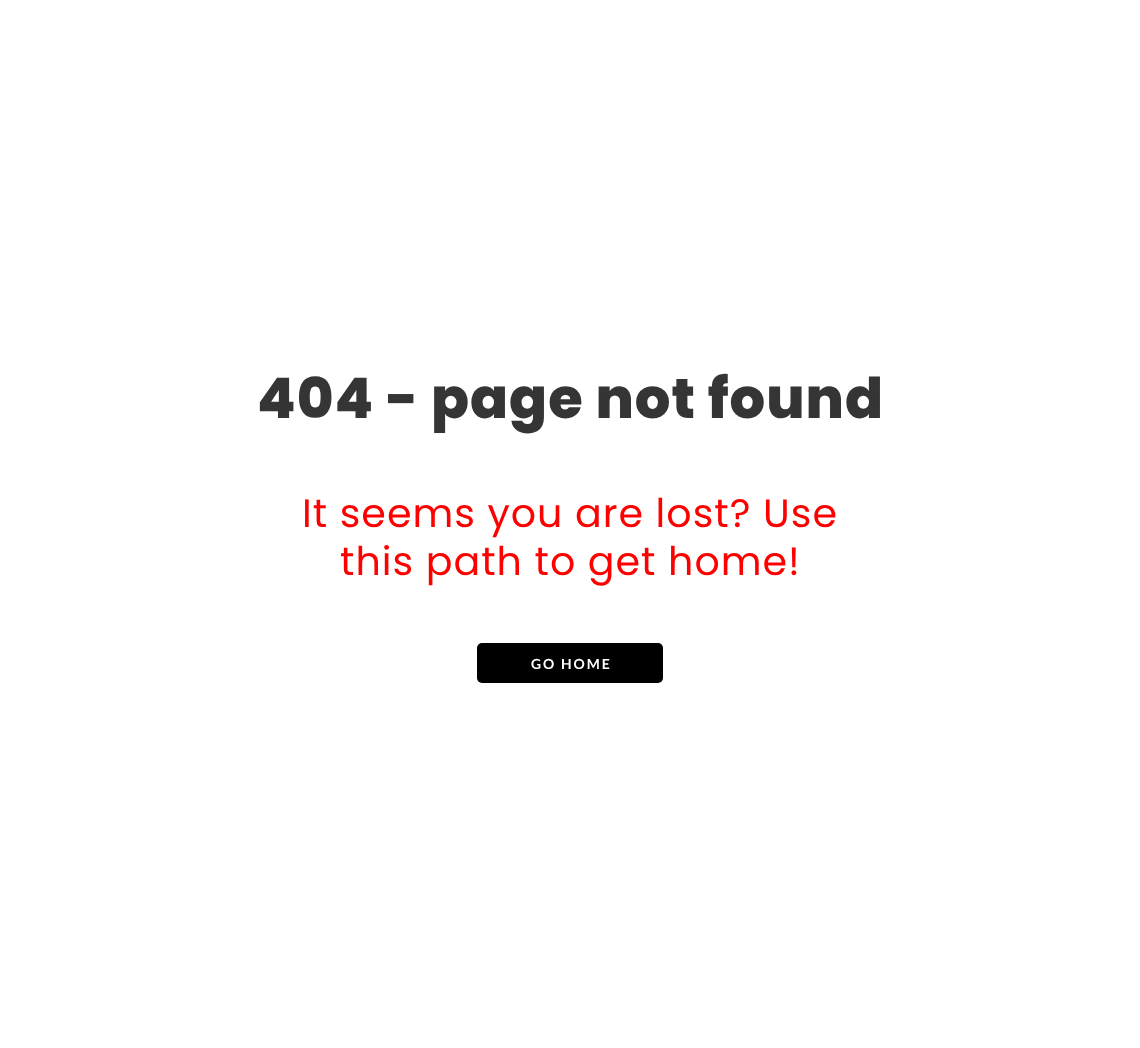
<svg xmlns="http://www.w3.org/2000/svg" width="1140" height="1048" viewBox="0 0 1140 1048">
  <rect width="100%" height="100%" fill="rgb(255,255,255)"/>
  <text x="257" y="418" font-family="Poppins" font-size="56" font-weight="800" letter-spacing="1" fill="rgb(53,53,53)">404 - page not found</text>
  <g font-family="Poppins" font-size="39.6" letter-spacing="1" fill="rgb(255,0,0)">
    <text x="302" y="527">It seems you are lost? Use</text>
    <text x="340" y="575">this path to get home!</text>
  </g>
  <rect x="477" y="643" width="186" height="40" rx="5" fill="rgb(0,0,0)"/>
  <text x="531" y="669" font-family="Lato" font-size="14" font-weight="bold" letter-spacing="2" fill="rgb(255,255,255)">GO HOME</text>
</svg>
